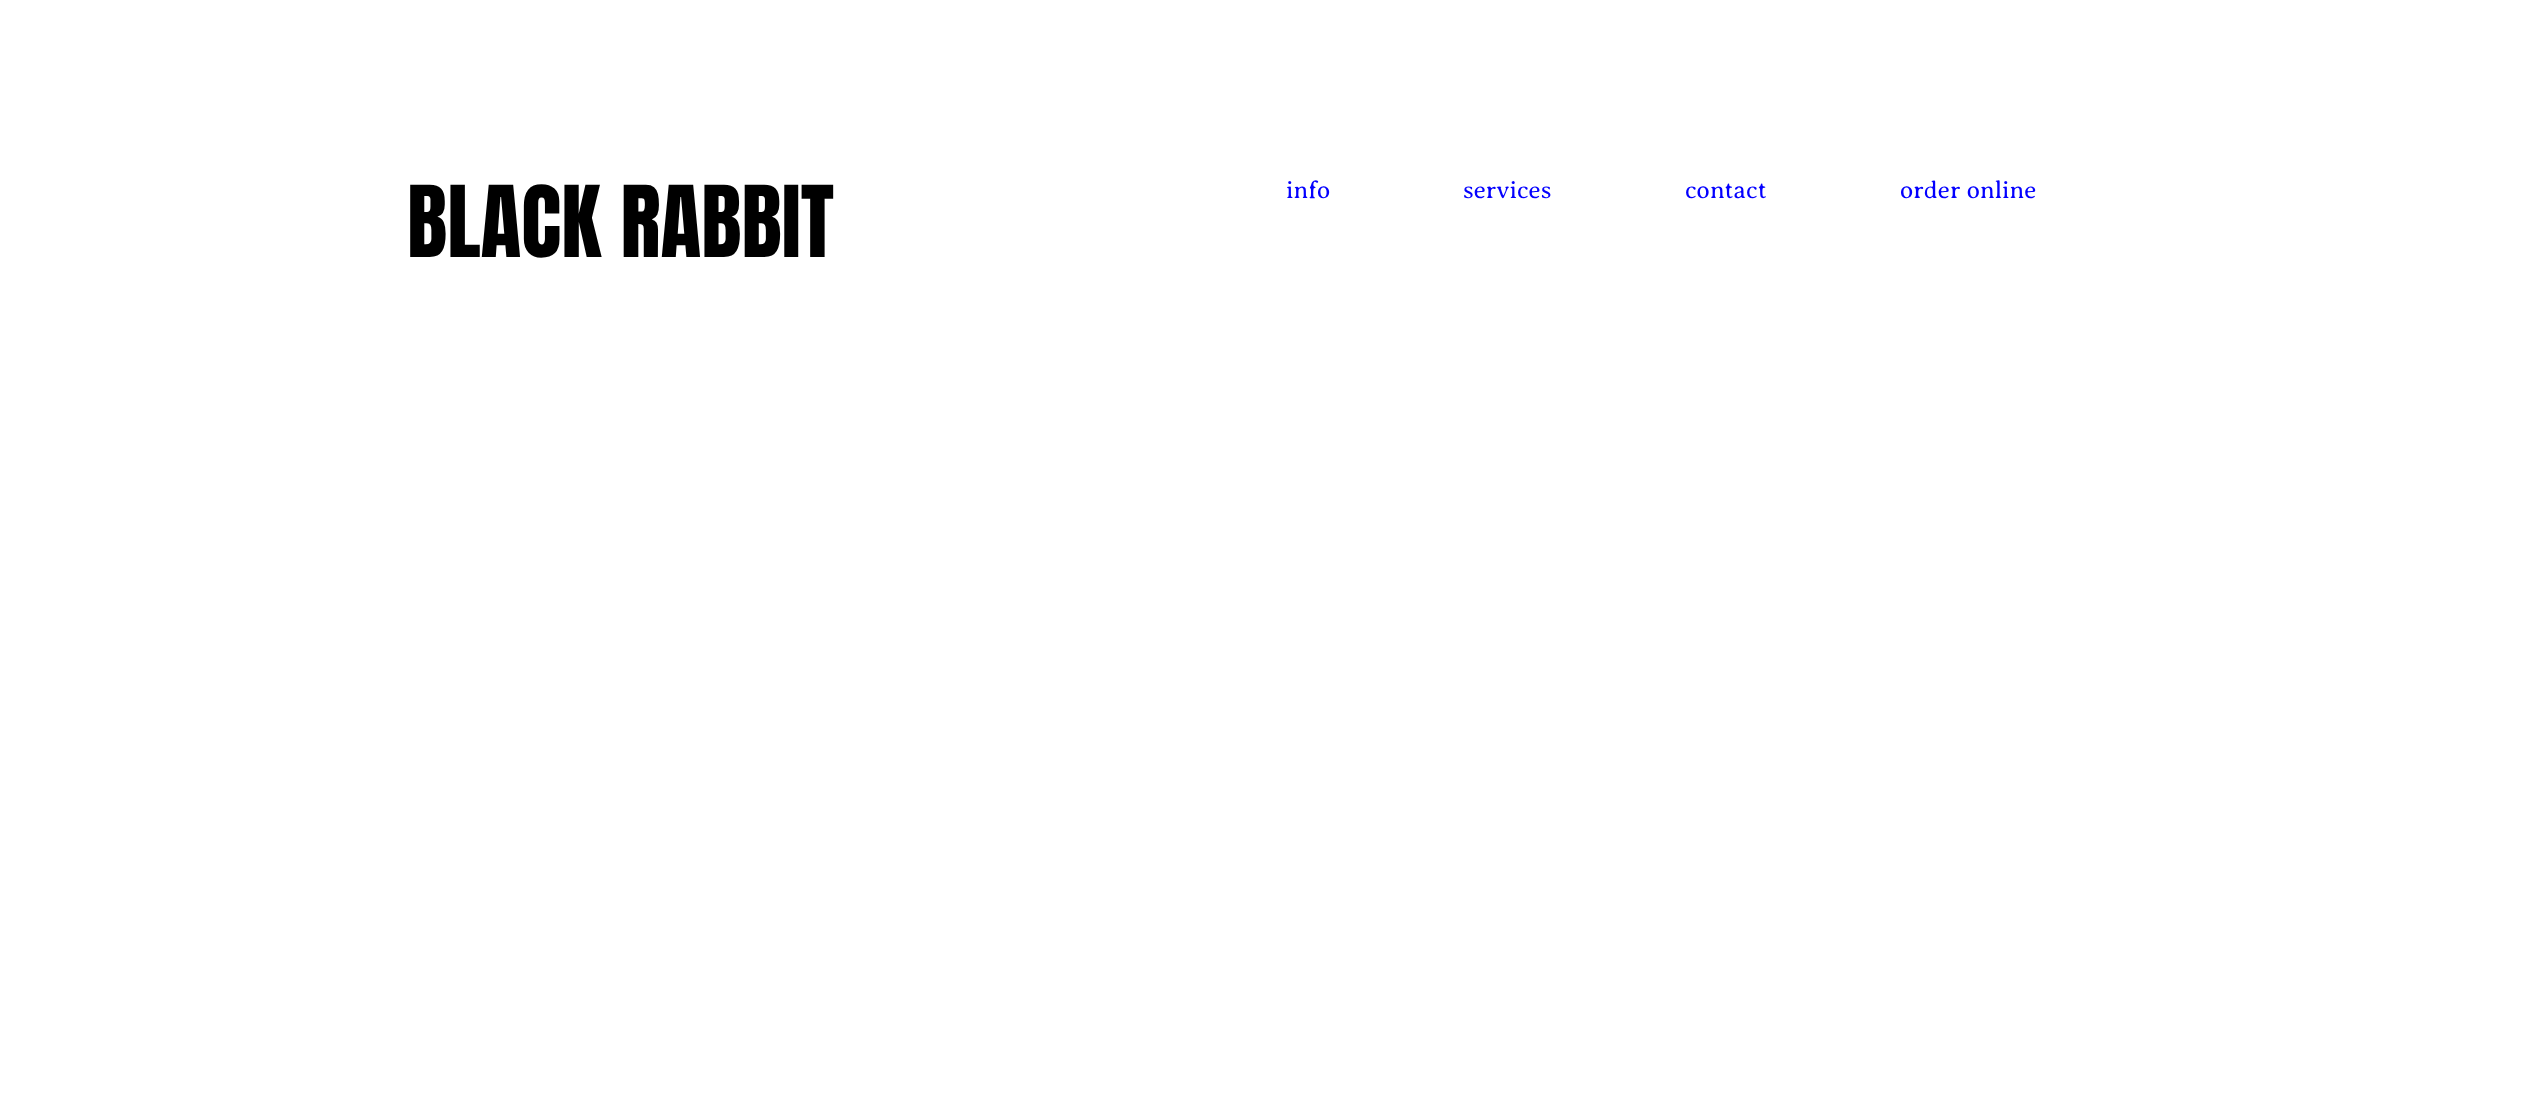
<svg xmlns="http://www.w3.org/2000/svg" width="2528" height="1102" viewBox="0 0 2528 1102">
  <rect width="100%" height="100%" fill="rgb(255,255,255)"/>
  <text x="407" y="257" font-family="Anton" font-size="84" fill="rgb(0,0,0)">BLACK RABBIT</text>
  <g font-family="Averia Serif Libre" font-size="24.5" font-weight="300" fill="rgb(4,0,255)">
    <text x="1286" y="198">info</text>
    <text x="1463" y="198">services</text>
    <text x="1685" y="198">contact</text>
    <text x="1900" y="198">order online</text>
  </g>
</svg>
